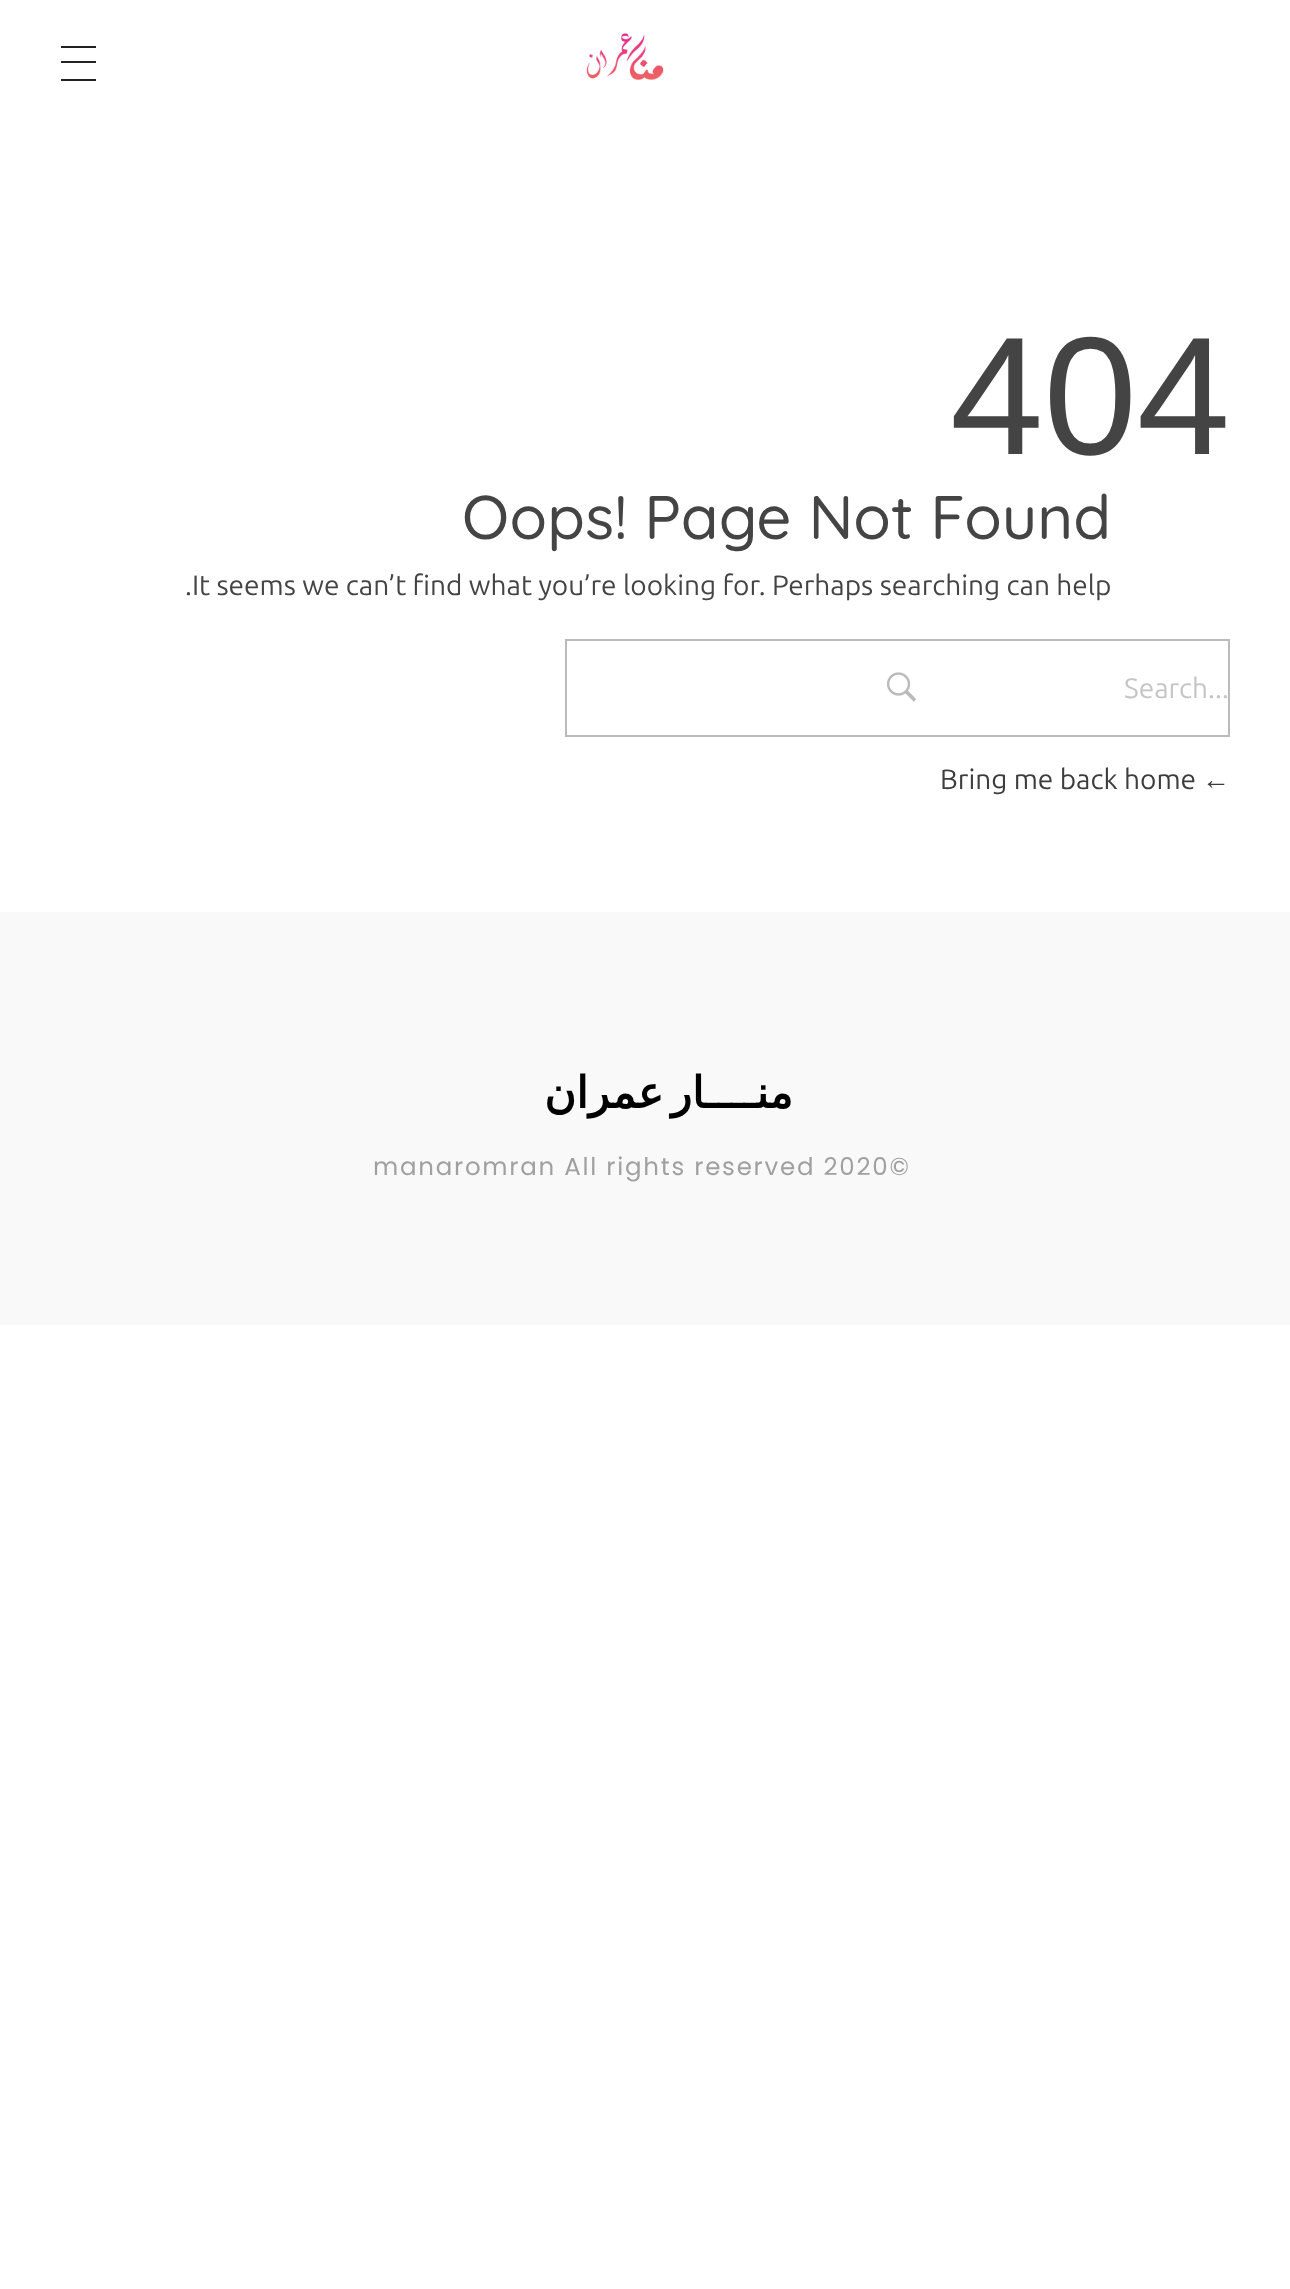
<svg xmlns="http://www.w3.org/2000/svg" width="1290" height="2289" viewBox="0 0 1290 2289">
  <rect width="100%" height="100%" fill="rgb(255,255,255)"/>
  <rect x="61" y="46" width="35" height="2" fill="rgb(34,34,34)"/>
  <rect x="61" y="61" width="35" height="2" fill="rgb(34,34,34)"/>
  <rect x="61" y="79" width="35" height="2" fill="rgb(34,34,34)"/>
  <image x="586" y="33" width="78" height="47" href="pic1.png"/>
  <text x="950" y="454" font-family="Liberation Sans" font-size="168" fill="rgb(68,68,68)">404</text>
  <text x="462" y="539" font-family="Quicksand" font-size="61.6" font-weight="500" fill="rgb(68,68,68)">Oops! Page Not Found</text>
  <text x="185" y="595" font-family="Ubuntu" font-size="28" fill="rgb(68,68,68)">.It seems we can’t find what you’re looking for. Perhaps searching can help</text>
  <rect x="566" y="640" width="663" height="96" fill="none" stroke="rgb(187,187,187)" stroke-width="2"/>
  <image x="887" y="672" width="30" height="30" href="pic2.png"/>
  <text x="1124" y="698" font-family="Ubuntu" font-size="28" fill="rgb(197,197,197)">Search...</text>
  <text x="940" y="789" font-family="Ubuntu" font-size="28" fill="rgb(61,61,61)">Bring me back home</text>
  <text x="1202" y="789" font-family="Liberation Sans" font-size="28" fill="rgb(61,61,61)">←</text>
  <rect x="0" y="912" width="1290" height="413" fill="rgb(249,249,249)"/>
  <text x="793" y="1108" word-spacing="-7" font-family="DejaVu Sans" font-size="43.75" font-weight="bold" letter-spacing="1.75" direction="rtl" fill="rgb(0,0,0)">منــــار عمران</text>
  <text x="373" y="1175" font-family="Poppins" font-size="24.5" letter-spacing="1.75" fill="rgb(160,160,160)">manaromran All rights reserved 2020©</text>
</svg>
